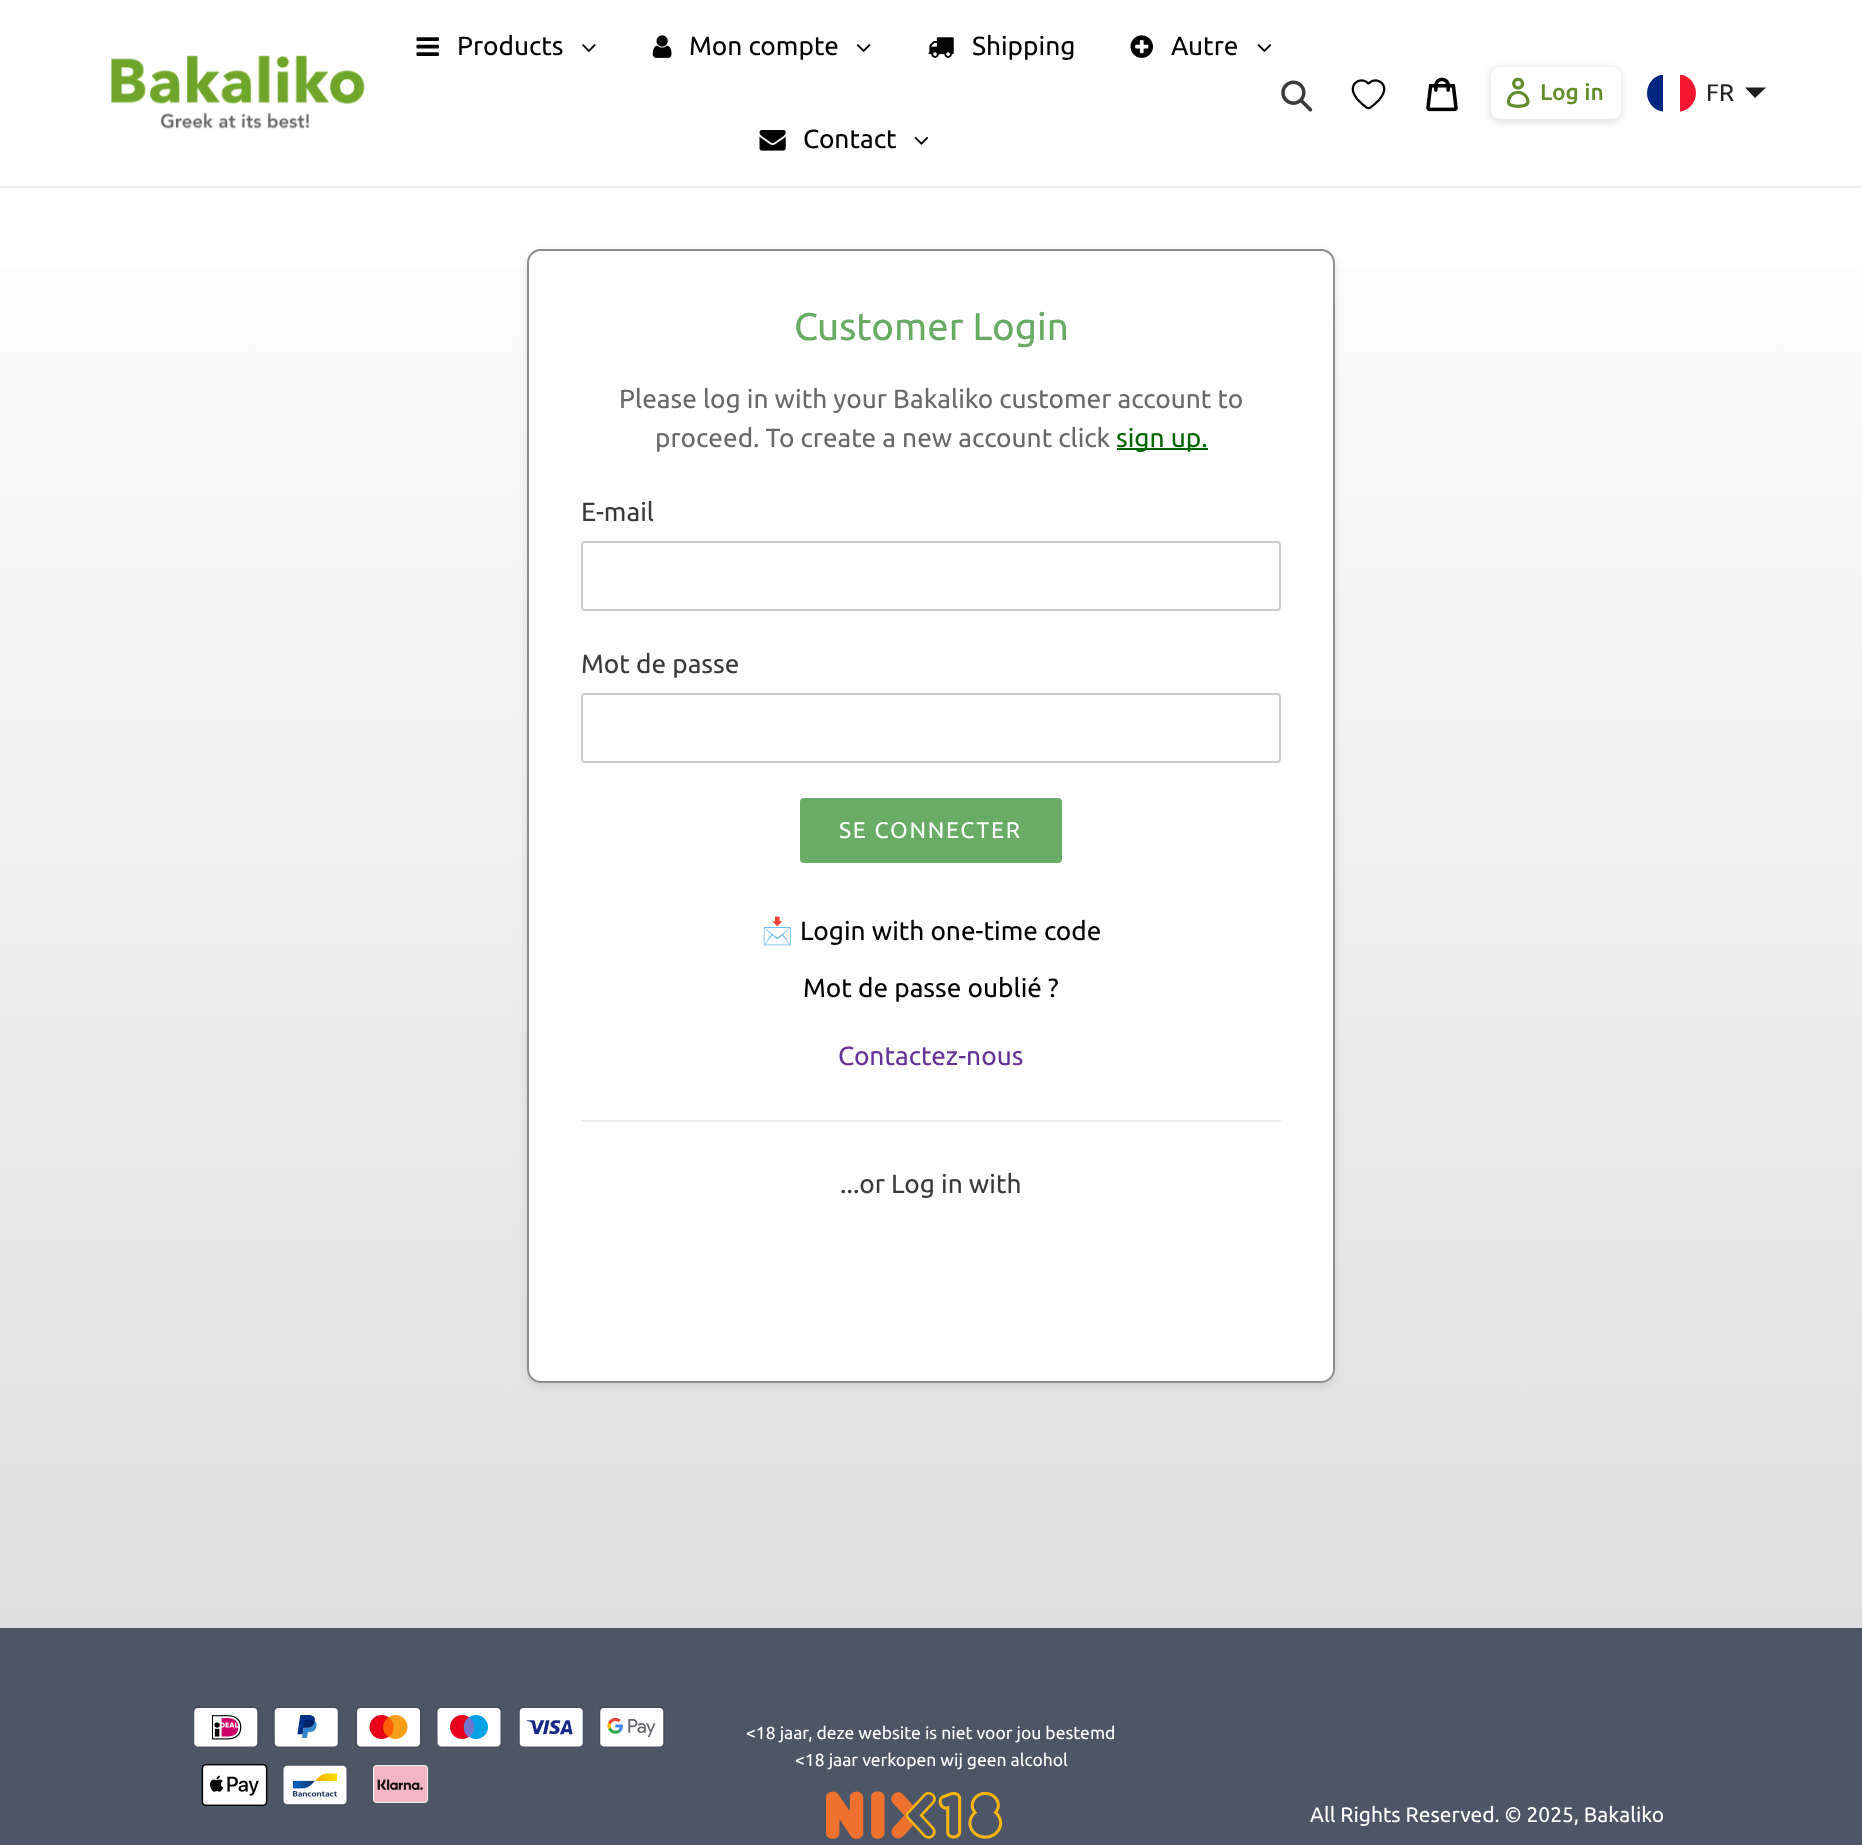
<svg xmlns="http://www.w3.org/2000/svg" width="1862" height="1845" viewBox="0 0 1862 1845">
  <defs>
    <clipPath id="clip1"><rect x="1647" y="74" width="49" height="38" rx="19"/></clipPath>
    <linearGradient id="g1" gradientUnits="userSpaceOnUse" x1="931" y1="152" x2="931" y2="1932"><stop offset="0" stop-color="rgb(255,255,255)"/><stop offset="1" stop-color="rgb(216,216,216)"/></linearGradient>
  </defs>
  <rect width="100%" height="100%" fill="rgb(255,255,255)"/>
  <rect x="0" y="186" width="1862" height="2" fill="rgb(235,235,235)"/>
  <image x="111" y="55" width="254" height="74" href="pic1.png"/>
  <image x="416" y="37" width="23" height="19" href="pic2.png"/>
  <text x="457" y="55" font-family="Ubuntu" font-size="26.25" fill="rgb(0,0,0)">Products</text>
  <image x="582" y="44" width="14" height="8" href="pic3.png"/>
  <image x="652" y="35" width="20" height="23" href="pic4.png"/>
  <text x="689" y="55" font-family="Ubuntu" font-size="26.25" fill="rgb(0,0,0)">Mon compte</text>
  <image x="856" y="44" width="15" height="8" href="pic5.png"/>
  <image x="928" y="37" width="26" height="21" href="pic6.png"/>
  <text x="972" y="55" font-family="Ubuntu" font-size="26.25" fill="rgb(0,0,0)">Shipping</text>
  <image x="1130" y="35" width="23" height="23" href="pic7.png"/>
  <text x="1171" y="55" font-family="Ubuntu" font-size="26.25" fill="rgb(0,0,0)">Autre</text>
  <image x="1257" y="44" width="15" height="8" href="pic8.png"/>
  <image x="759" y="130" width="27" height="21" href="pic9.png"/>
  <text x="803" y="148" font-family="Ubuntu" font-size="26.25" fill="rgb(0,0,0)">Contact</text>
  <image x="914" y="136" width="15" height="9" href="pic10.png"/>
  <image x="1281" y="80" width="32" height="32" href="pic11.png"/>
  <image x="1351" y="79" width="35" height="31" href="pic12.png"/>
  <image x="1426" y="77" width="32" height="35" href="pic13.png"/>
  <rect x="1489" y="67" width="133" height="56" rx="11" fill="rgba(0,0,0,0.1)" filter="blur(3.5px)"/>
  <rect x="1491" y="67" width="130" height="52" rx="9" fill="rgb(255,255,255)"/>
  <image x="1507" y="77" width="23" height="31" href="pic14.png"/>
  <text x="1540" y="100" font-family="Ubuntu" font-size="22.75" font-weight="500" fill="rgb(99,140,42)">Log in</text>
  <g clip-path="url(#clip1)">
    <rect x="1647" y="75" width="16" height="37" fill="rgb(0,38,127)"/>
    <rect x="1680" y="75" width="16" height="37" fill="rgb(243,24,48)"/>
  </g>
  <text x="1706" y="101" font-family="Ubuntu" font-size="24" fill="rgb(32,34,35)">FR</text>
  <path d="M1745 87.5H1766L1755 98Z" fill="rgb(29,29,29)"/>
  <rect x="0" y="266" width="1862" height="1362" fill="url(#g1)"/>
  <rect x="527" y="252" width="808" height="1134" rx="14" fill="rgba(0,0,0,0.1)" filter="blur(5px)"/>
  <rect x="527" y="249" width="808" height="1134" rx="14" fill="rgb(255,255,255)"/>
  <rect x="528" y="250" width="806" height="1132" rx="13" fill="none" stroke="rgba(121,121,121,0.86)" stroke-width="2"/>
  <text x="794" y="340" font-family="Ubuntu" font-size="38.5" fill="rgb(104,172,100)">Customer Login</text>
  <g font-family="Ubuntu" font-size="26.25" fill="rgb(105,105,105)">
    <text x="619" y="408">Please log in with your Bakaliko customer account to</text>
    <text x="655" y="447">proceed. To create a new account click</text>
  </g>
  <rect x="1117" y="448" width="91" height="2" fill="rgb(0,100,0)"/>
  <text x="1116" y="447" font-family="Ubuntu" font-size="26.25" fill="rgb(0,100,0)">sign up.</text>
  <text x="581" y="521" font-family="Ubuntu" font-size="26.25" fill="rgb(58,58,58)">E-mail</text>
  <rect x="582" y="542" width="698" height="68" rx="3" fill="none" stroke="rgb(204,204,204)" stroke-width="2"/>
  <text x="581" y="673" font-family="Ubuntu" font-size="26.25" fill="rgb(58,58,58)">Mot de passe</text>
  <rect x="582" y="694" width="698" height="68" rx="3" fill="none" stroke="rgb(204,204,204)" stroke-width="2"/>
  <rect x="800" y="798" width="262" height="65" rx="4" fill="rgb(104,172,101)"/>
  <text x="839" y="838" font-family="Ubuntu" font-size="22.75" letter-spacing="1.75" fill="rgb(255,255,255)">SE CONNECTER</text>
  <text x="761" y="940" font-family="Noto Color Emoji" font-size="26.25" fill="rgb(0,0,0)">📩</text>
  <g font-family="Ubuntu" font-size="26.25" fill="rgb(0,0,0)">
    <text x="800" y="940">Login with one-time code</text>
    <text x="803" y="997">Mot de passe oublié ?</text>
  </g>
  <text x="838" y="1065" font-family="Ubuntu" font-size="26.25" fill="rgb(102,51,153)">Contactez-nous</text>
  <rect x="581" y="1120" width="700" height="2" fill="rgb(235,235,235)"/>
  <text x="840" y="1193" font-family="Ubuntu" font-size="26.25" fill="rgb(58,58,58)">...or Log in with</text>
  <rect x="0" y="1628" width="1862" height="217" fill="rgb(76,86,103)"/>
  <image x="193" y="1706" width="66" height="42" href="pic15.png"/>
  <image x="273" y="1706" width="66" height="42" href="pic16.png"/>
  <image x="355" y="1706" width="67" height="42" href="pic17.png"/>
  <image x="436" y="1706" width="66" height="42" href="pic18.png"/>
  <image x="518" y="1706" width="66" height="42" href="pic19.png"/>
  <image x="599" y="1706" width="66" height="42" href="pic20.png"/>
  <image x="201" y="1764" width="67" height="42" href="pic21.png"/>
  <image x="282" y="1764" width="66" height="42" href="pic22.png"/>
  <image x="373" y="1765" width="55" height="38" href="pic23.png"/>
  <g font-family="Ubuntu" font-size="17.5" fill="rgb(255,255,255)">
    <text x="746" y="1739">&lt;18 jaar, deze website is niet voor jou bestemd</text>
    <text x="795" y="1766">&lt;18 jaar verkopen wij geen alcohol</text>
  </g>
  <image x="826" y="1791" width="177" height="48" href="pic24.png"/>
  <text x="1310" y="1822" font-family="Ubuntu" font-size="21" fill="rgb(255,255,255)">All Rights Reserved. © 2025, Bakaliko</text>
</svg>
